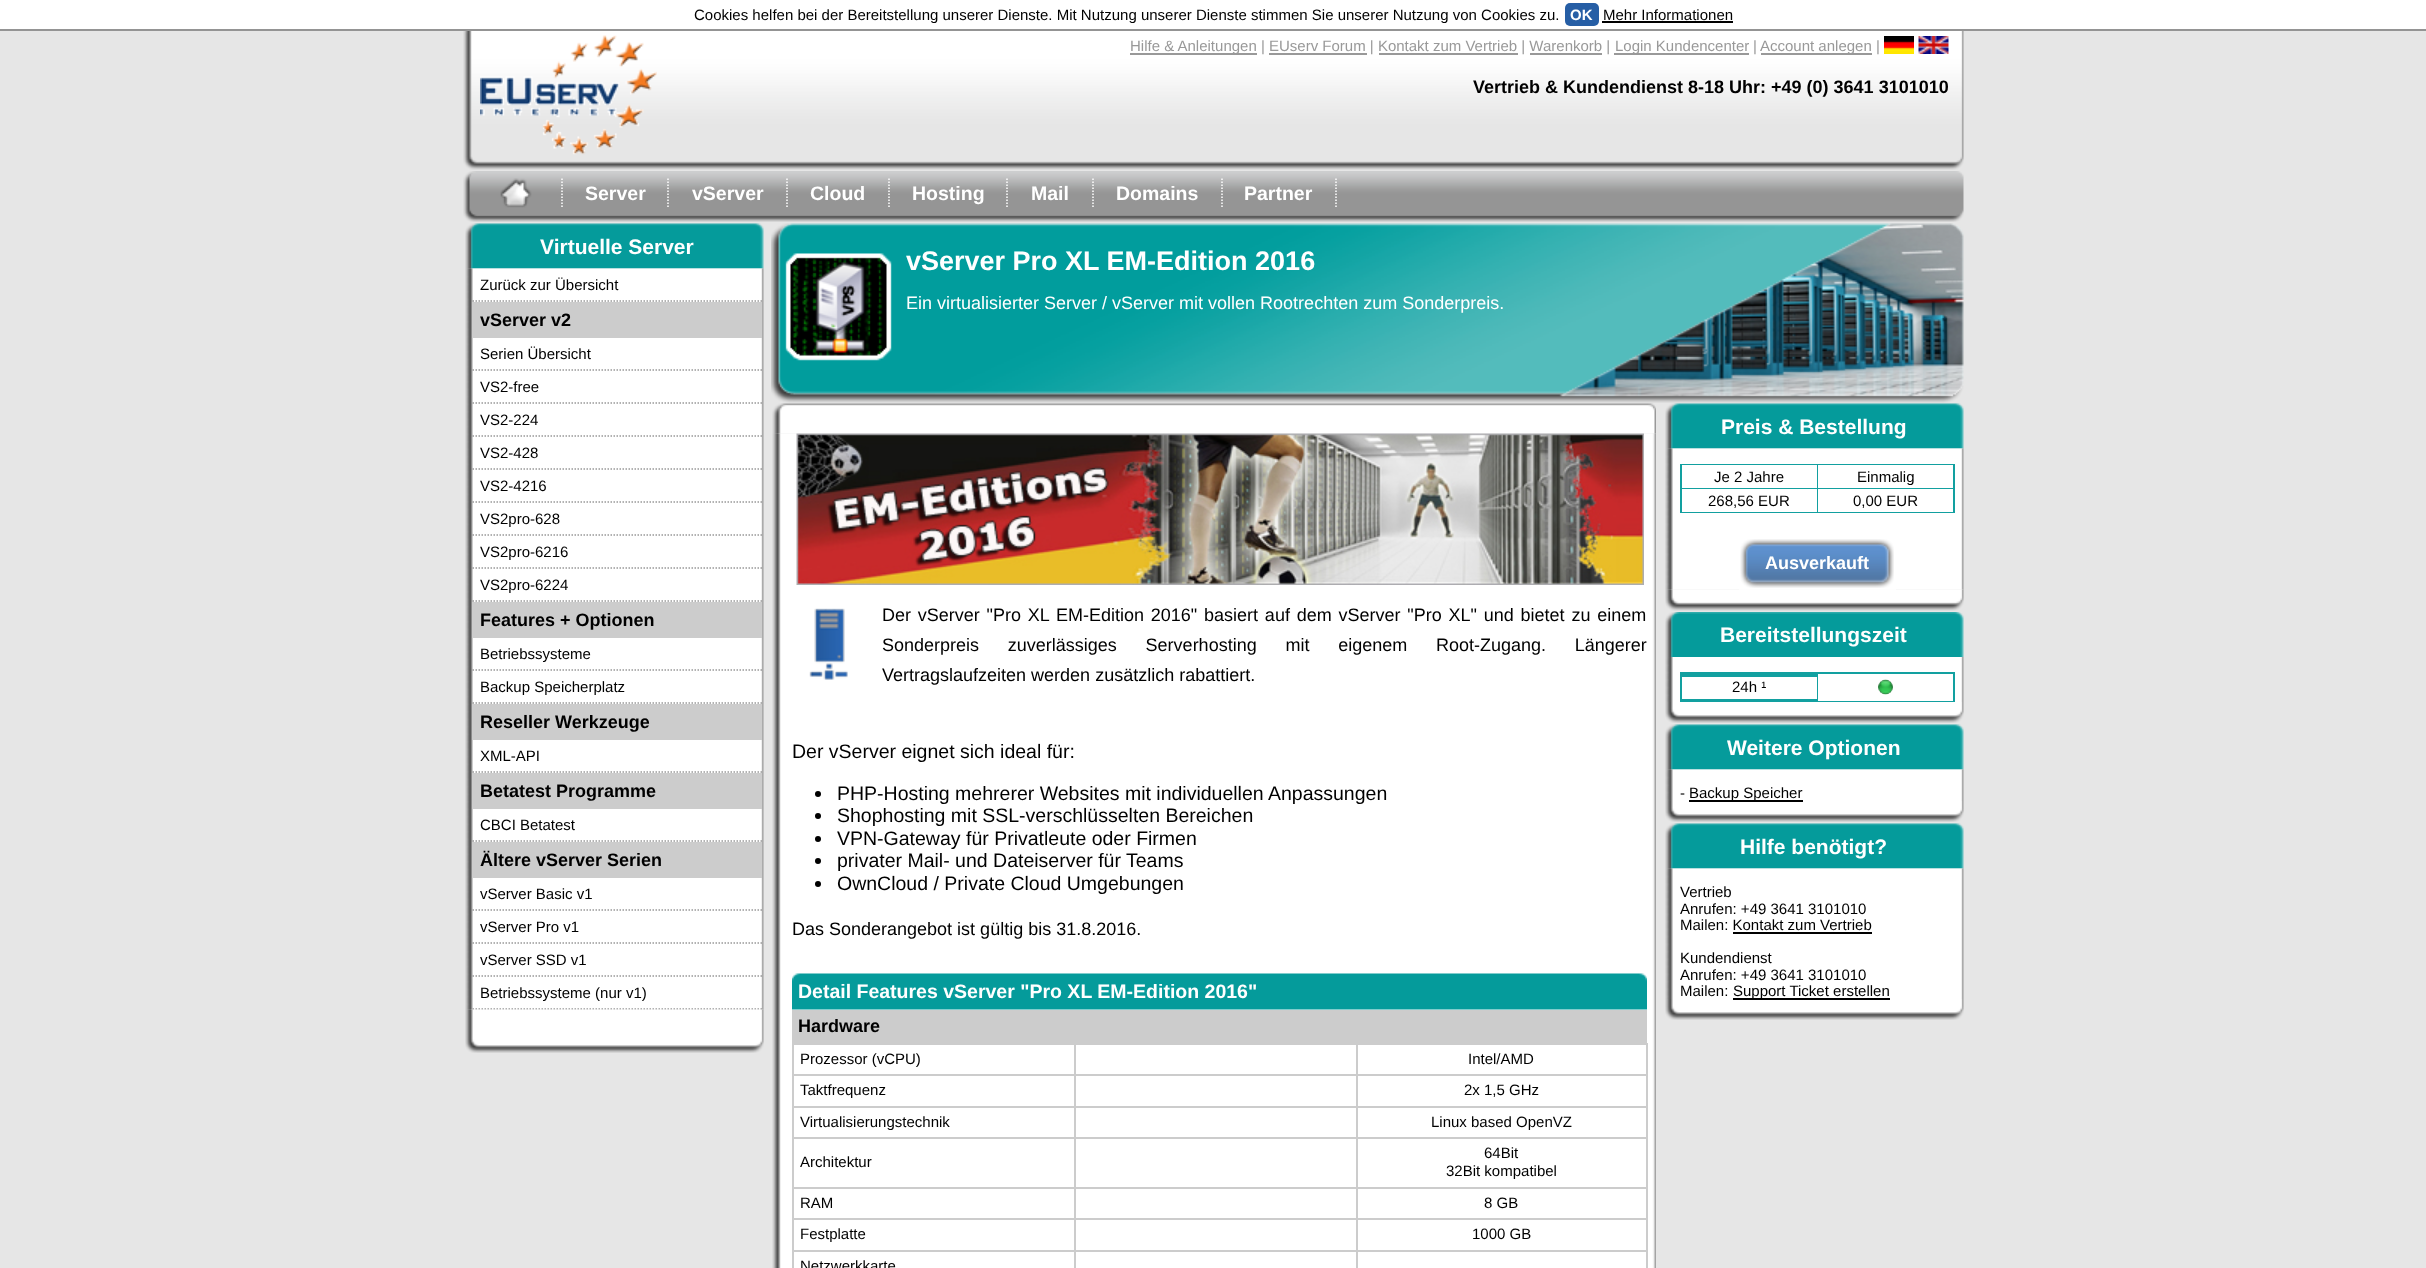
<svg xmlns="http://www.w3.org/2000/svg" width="2426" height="1268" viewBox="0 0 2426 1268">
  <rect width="100%" height="100%" fill="rgb(230,230,230)"/>
  <rect x="0" y="0" width="2426" height="29" fill="rgb(255,255,255)"/>
  <rect x="0" y="29" width="2426" height="2" fill="rgb(148,148,148)"/>
  <text x="694" y="20" font-family="Liberation Sans" font-size="15" fill="rgb(0,0,0)">Cookies helfen bei der Bereitstellung unserer Dienste. Mit Nutzung unserer Dienste stimmen Sie unserer Nutzung von Cookies zu.</text>
  <rect x="1565" y="3" width="34" height="23" rx="5" fill="rgb(38,94,165)"/>
  <text x="1570" y="20" font-family="Liberation Sans" font-size="15" font-weight="bold" fill="rgb(255,255,255)">OK</text>
  <text x="1603" y="20" font-family="Liberation Sans" font-size="15" fill="rgb(0,0,0)">Mehr Informationen</text>
  <rect x="1602" y="21" width="131" height="2" fill="rgb(0,0,0)"/>
  <image x="463" y="31" width="203" height="139" href="pic1.png"/>
  <image x="480" y="35" width="177" height="120" href="pic2.png"/>
  <image x="666" y="31" width="1298" height="139" href="pic3.png"/>
  <rect x="1130" y="53" width="127" height="2" fill="rgb(153,153,153)"/>
  <text x="1130" y="51" font-family="Liberation Sans" font-size="15" fill="rgb(153,153,153)">Hilfe &amp; Anleitungen | EUserv Forum | Kontakt zum Vertrieb | Warenkorb |</text>
  <rect x="1614" y="53" width="135" height="2" fill="rgb(153,153,153)"/>
  <g font-family="Liberation Sans" font-size="15" fill="rgb(153,153,153)">
    <text x="1615" y="51">Login Kundencenter</text>
    <text x="1753" y="51">|</text>
  </g>
  <rect x="1761" y="53" width="111" height="2" fill="rgb(153,153,153)"/>
  <text x="1760" y="51" font-family="Liberation Sans" font-size="15" fill="rgb(153,153,153)">Account anlegen |</text>
  <image x="1884" y="36" width="30" height="18" href="pic4.png"/>
  <image x="1918" y="36" width="31" height="18" href="pic5.png"/>
  <rect x="1269" y="53" width="98" height="2" fill="rgb(153,153,153)"/>
  <rect x="1379" y="53" width="139" height="2" fill="rgb(153,153,153)"/>
  <rect x="1530" y="53" width="72" height="2" fill="rgb(153,153,153)"/>
  <text x="1473" y="93" font-family="Liberation Sans" font-size="18" font-weight="bold" fill="rgb(0,0,0)">Vertrieb &amp; Kundendienst 8-18 Uhr: +49 (0) 3641 3101010</text>
  <image x="463" y="171" width="1501" height="51" href="pic6.png"/>
  <image x="500" y="178" width="32" height="30" href="pic7.png"/>
  <path d="M562 178.5V208.5" fill="none" stroke="rgb(255,255,255)" stroke-width="1.5" stroke-dasharray="1.5 1.5"/>
  <text x="585" y="200" font-family="Liberation Sans" font-size="19.5" font-weight="bold" fill="rgb(255,255,255)">Server</text>
  <path d="M668 178.5V208.5" fill="none" stroke="rgb(255,255,255)" stroke-width="1.5" stroke-dasharray="1.5 1.5"/>
  <text x="692" y="200" font-family="Liberation Sans" font-size="19.5" font-weight="bold" fill="rgb(255,255,255)">vServer</text>
  <path d="M787 178.5V208.5" fill="none" stroke="rgb(255,255,255)" stroke-width="1.5" stroke-dasharray="1.5 1.5"/>
  <text x="810" y="200" font-family="Liberation Sans" font-size="19.5" font-weight="bold" fill="rgb(255,255,255)">Cloud</text>
  <path d="M889 178.5V208.5" fill="none" stroke="rgb(255,255,255)" stroke-width="1.5" stroke-dasharray="1.5 1.5"/>
  <text x="912" y="200" font-family="Liberation Sans" font-size="19.5" font-weight="bold" fill="rgb(255,255,255)">Hosting</text>
  <path d="M1007 178.5V208.5" fill="none" stroke="rgb(255,255,255)" stroke-width="1.5" stroke-dasharray="1.5 1.5"/>
  <text x="1031" y="200" font-family="Liberation Sans" font-size="19.5" font-weight="bold" fill="rgb(255,255,255)">Mail</text>
  <path d="M1093 178.5V208.5" fill="none" stroke="rgb(255,255,255)" stroke-width="1.5" stroke-dasharray="1.5 1.5"/>
  <text x="1116" y="200" font-family="Liberation Sans" font-size="19.5" font-weight="bold" fill="rgb(255,255,255)">Domains</text>
  <path d="M1222 178.5V208.5" fill="none" stroke="rgb(255,255,255)" stroke-width="1.5" stroke-dasharray="1.5 1.5"/>
  <text x="1244" y="200" font-family="Liberation Sans" font-size="19.5" font-weight="bold" fill="rgb(255,255,255)">Partner</text>
  <path d="M1336 178.5V208.5" fill="none" stroke="rgb(255,255,255)" stroke-width="1.5" stroke-dasharray="1.5 1.5"/>
  <image x="465" y="223" width="299" height="46" href="pic8.png"/>
  <text x="540" y="254" font-family="Liberation Sans" font-size="21" font-weight="bold" fill="rgb(255,255,255)">Virtuelle Server</text>
  <image x="465" y="268" width="299" height="742" href="pic9.png"/>
  <path d="M472.5 301H762" fill="none" stroke="rgb(153,153,153)" stroke-width="1.5" stroke-dasharray="1.5 1.5"/>
  <text x="480" y="290" font-family="Liberation Sans" font-size="15" fill="rgb(0,0,0)">Zurück zur Übersicht</text>
  <rect x="473" y="302" width="289" height="36" fill="rgb(204,204,204)"/>
  <text x="480" y="326" font-family="Liberation Sans" font-size="18" font-weight="bold" fill="rgb(0,0,0)">vServer v2</text>
  <path d="M472.5 370H762" fill="none" stroke="rgb(153,153,153)" stroke-width="1.5" stroke-dasharray="1.5 1.5"/>
  <text x="480" y="359" font-family="Liberation Sans" font-size="15" fill="rgb(0,0,0)">Serien Übersicht</text>
  <path d="M472.5 403H762" fill="none" stroke="rgb(153,153,153)" stroke-width="1.5" stroke-dasharray="1.5 1.5"/>
  <text x="480" y="392" font-family="Liberation Sans" font-size="15" fill="rgb(0,0,0)">VS2-free</text>
  <path d="M472.5 436H762" fill="none" stroke="rgb(153,153,153)" stroke-width="1.5" stroke-dasharray="1.5 1.5"/>
  <text x="480" y="425" font-family="Liberation Sans" font-size="15" fill="rgb(0,0,0)">VS2-224</text>
  <path d="M472.5 469H762" fill="none" stroke="rgb(153,153,153)" stroke-width="1.5" stroke-dasharray="1.5 1.5"/>
  <text x="480" y="458" font-family="Liberation Sans" font-size="15" fill="rgb(0,0,0)">VS2-428</text>
  <path d="M472.5 502H762" fill="none" stroke="rgb(153,153,153)" stroke-width="1.5" stroke-dasharray="1.5 1.5"/>
  <text x="480" y="491" font-family="Liberation Sans" font-size="15" fill="rgb(0,0,0)">VS2-4216</text>
  <path d="M472.5 535H762" fill="none" stroke="rgb(153,153,153)" stroke-width="1.5" stroke-dasharray="1.5 1.5"/>
  <text x="480" y="524" font-family="Liberation Sans" font-size="15" fill="rgb(0,0,0)">VS2pro-628</text>
  <path d="M472.5 568H762" fill="none" stroke="rgb(153,153,153)" stroke-width="1.5" stroke-dasharray="1.5 1.5"/>
  <text x="480" y="557" font-family="Liberation Sans" font-size="15" fill="rgb(0,0,0)">VS2pro-6216</text>
  <path d="M472.5 601H762" fill="none" stroke="rgb(153,153,153)" stroke-width="1.5" stroke-dasharray="1.5 1.5"/>
  <text x="480" y="590" font-family="Liberation Sans" font-size="15" fill="rgb(0,0,0)">VS2pro-6224</text>
  <rect x="473" y="602" width="289" height="36" fill="rgb(204,204,204)"/>
  <text x="480" y="626" font-family="Liberation Sans" font-size="18" font-weight="bold" fill="rgb(0,0,0)">Features + Optionen</text>
  <path d="M472.5 670H762" fill="none" stroke="rgb(153,153,153)" stroke-width="1.5" stroke-dasharray="1.5 1.5"/>
  <text x="480" y="659" font-family="Liberation Sans" font-size="15" fill="rgb(0,0,0)">Betriebssysteme</text>
  <path d="M472.5 703H762" fill="none" stroke="rgb(153,153,153)" stroke-width="1.5" stroke-dasharray="1.5 1.5"/>
  <text x="480" y="692" font-family="Liberation Sans" font-size="15" fill="rgb(0,0,0)">Backup Speicherplatz</text>
  <rect x="473" y="704" width="289" height="36" fill="rgb(204,204,204)"/>
  <text x="480" y="728" font-family="Liberation Sans" font-size="18" font-weight="bold" fill="rgb(0,0,0)">Reseller Werkzeuge</text>
  <path d="M472.5 772H762" fill="none" stroke="rgb(153,153,153)" stroke-width="1.5" stroke-dasharray="1.5 1.5"/>
  <text x="480" y="761" font-family="Liberation Sans" font-size="15" fill="rgb(0,0,0)">XML-API</text>
  <rect x="473" y="773" width="289" height="36" fill="rgb(204,204,204)"/>
  <text x="480" y="797" font-family="Liberation Sans" font-size="18" font-weight="bold" fill="rgb(0,0,0)">Betatest Programme</text>
  <path d="M472.5 841H762" fill="none" stroke="rgb(153,153,153)" stroke-width="1.5" stroke-dasharray="1.5 1.5"/>
  <text x="480" y="830" font-family="Liberation Sans" font-size="15" fill="rgb(0,0,0)">CBCI Betatest</text>
  <rect x="473" y="842" width="289" height="36" fill="rgb(204,204,204)"/>
  <text x="480" y="866" font-family="Liberation Sans" font-size="18" font-weight="bold" fill="rgb(0,0,0)">Ältere vServer Serien</text>
  <path d="M472.5 910H762" fill="none" stroke="rgb(153,153,153)" stroke-width="1.5" stroke-dasharray="1.5 1.5"/>
  <text x="480" y="899" font-family="Liberation Sans" font-size="15" fill="rgb(0,0,0)">vServer Basic v1</text>
  <path d="M472.5 943H762" fill="none" stroke="rgb(153,153,153)" stroke-width="1.5" stroke-dasharray="1.5 1.5"/>
  <text x="480" y="932" font-family="Liberation Sans" font-size="15" fill="rgb(0,0,0)">vServer Pro v1</text>
  <path d="M472.5 976H762" fill="none" stroke="rgb(153,153,153)" stroke-width="1.5" stroke-dasharray="1.5 1.5"/>
  <text x="480" y="965" font-family="Liberation Sans" font-size="15" fill="rgb(0,0,0)">vServer SSD v1</text>
  <path d="M472.5 1009H762" fill="none" stroke="rgb(153,153,153)" stroke-width="1.5" stroke-dasharray="1.5 1.5"/>
  <text x="480" y="998" font-family="Liberation Sans" font-size="15" fill="rgb(0,0,0)">Betriebssysteme (nur v1)</text>
  <image x="465" y="1009" width="299" height="44" href="pic10.png"/>
  <image x="771" y="223" width="1193" height="180" href="pic11.png"/>
  <text x="906" y="270" font-family="Liberation Sans" font-size="27" font-weight="bold" fill="rgb(255,255,255)">vServer Pro XL EM-Edition 2016</text>
  <text x="906" y="309" font-family="Liberation Sans" font-size="18" fill="rgb(255,255,255)">Ein virtualisierter Server / vServer mit vollen Rootrechten zum Sonderpreis.</text>
  <image x="772" y="403" width="884" height="31" href="pic12.png"/>
  <image x="772" y="433" width="884" height="835" href="pic13.png"/>
  <image x="796" y="433" width="848" height="152" href="pic14.png"/>
  <image x="809" y="608" width="39" height="72" href="pic15.png"/>
  <g font-family="Liberation Sans" font-size="18" fill="rgb(0,0,0)">
    <text>
      <tspan x="882" y="621" word-spacing="1.8">Der vServer "Pro XL EM-Edition 2016" basiert auf dem vServer "Pro XL" und bietet zu einem</tspan>
      <tspan x="882" y="651" word-spacing="23.75">Sonderpreis zuverlässiges Serverhosting mit eigenem Root-Zugang. Längerer</tspan>
      <tspan x="882" y="681">Vertragslaufzeiten werden zusätzlich rabattiert.</tspan>
    </text>
  </g>
  <text x="792" y="758" font-family="Liberation Sans" font-size="19.5" fill="rgb(0,0,0)">Der vServer eignet sich ideal für:</text>
  <circle cx="818" cy="794" r="3" fill="rgb(0,0,0)"/>
  <text x="837" y="800" font-family="Liberation Sans" font-size="19.5" fill="rgb(0,0,0)">PHP-Hosting mehrerer Websites mit individuellen Anpassungen</text>
  <circle cx="818" cy="816" r="3" fill="rgb(0,0,0)"/>
  <text x="837" y="822" font-family="Liberation Sans" font-size="19.5" fill="rgb(0,0,0)">Shophosting mit SSL-verschlüsselten Bereichen</text>
  <circle cx="818" cy="839" r="3" fill="rgb(0,0,0)"/>
  <text x="837" y="845" font-family="Liberation Sans" font-size="19.5" fill="rgb(0,0,0)">VPN-Gateway für Privatleute oder Firmen</text>
  <circle cx="818" cy="861" r="3" fill="rgb(0,0,0)"/>
  <text x="837" y="867" font-family="Liberation Sans" font-size="19.5" fill="rgb(0,0,0)">privater Mail- und Dateiserver für Teams</text>
  <circle cx="818" cy="884" r="3" fill="rgb(0,0,0)"/>
  <text x="837" y="890" font-family="Liberation Sans" font-size="19.5" fill="rgb(0,0,0)">OwnCloud / Private Cloud Umgebungen</text>
  <text x="792" y="935" font-family="Liberation Sans" font-size="18" fill="rgb(0,0,0)">Das Sonderangebot ist gültig bis 31.8.2016.</text>
  <image x="792" y="973" width="855" height="37" href="pic16.png"/>
  <text x="798" y="998" font-family="Liberation Sans" font-size="19.5" font-weight="bold" fill="rgb(255,255,255)">Detail Features vServer "Pro XL EM-Edition 2016"</text>
  <rect x="792" y="1010" width="855" height="35" fill="rgb(204,204,204)"/>
  <text x="798" y="1032" font-family="Liberation Sans" font-size="18" font-weight="bold" fill="rgb(0,0,0)">Hardware</text>
  <rect x="792" y="1045" width="2" height="223" fill="rgb(204,204,204)"/>
  <rect x="1646" y="1043" width="2" height="225" fill="rgb(204,204,204)"/>
  <text x="800" y="1064" font-family="Liberation Sans" font-size="15" fill="rgb(0,0,0)">Prozessor (vCPU)</text>
  <rect x="1356" y="1074" width="291" height="2" fill="rgb(204,204,204)"/>
  <rect x="1356" y="1106" width="291" height="2" fill="rgb(204,204,204)"/>
  <rect x="1356" y="1137" width="291" height="2" fill="rgb(204,204,204)"/>
  <rect x="1356" y="1187" width="291" height="2" fill="rgb(204,204,204)"/>
  <rect x="1356" y="1218" width="291" height="2" fill="rgb(204,204,204)"/>
  <rect x="1356" y="1250" width="291" height="2" fill="rgb(204,204,204)"/>
  <rect x="1356" y="1250" width="2" height="18" fill="rgb(204,204,204)"/>
  <rect x="1074" y="1250" width="284" height="2" fill="rgb(204,204,204)"/>
  <rect x="1356" y="1218" width="2" height="33" fill="rgb(204,204,204)"/>
  <rect x="1074" y="1218" width="284" height="2" fill="rgb(204,204,204)"/>
  <rect x="1356" y="1187" width="2" height="33" fill="rgb(204,204,204)"/>
  <rect x="1074" y="1187" width="284" height="2" fill="rgb(204,204,204)"/>
  <rect x="1356" y="1137" width="2" height="51" fill="rgb(204,204,204)"/>
  <rect x="1074" y="1137" width="284" height="2" fill="rgb(204,204,204)"/>
  <rect x="1356" y="1106" width="2" height="33" fill="rgb(204,204,204)"/>
  <rect x="1074" y="1106" width="284" height="2" fill="rgb(204,204,204)"/>
  <rect x="1356" y="1074" width="2" height="33" fill="rgb(204,204,204)"/>
  <rect x="1074" y="1074" width="284" height="2" fill="rgb(204,204,204)"/>
  <rect x="1074" y="1250" width="2" height="18" fill="rgb(204,204,204)"/>
  <rect x="792" y="1250" width="284" height="2" fill="rgb(204,204,204)"/>
  <rect x="1074" y="1218" width="2" height="33" fill="rgb(204,204,204)"/>
  <rect x="792" y="1218" width="284" height="2" fill="rgb(204,204,204)"/>
  <rect x="1074" y="1187" width="2" height="33" fill="rgb(204,204,204)"/>
  <rect x="792" y="1187" width="284" height="2" fill="rgb(204,204,204)"/>
  <rect x="1074" y="1137" width="2" height="51" fill="rgb(204,204,204)"/>
  <rect x="792" y="1137" width="284" height="2" fill="rgb(204,204,204)"/>
  <rect x="1074" y="1106" width="2" height="33" fill="rgb(204,204,204)"/>
  <rect x="792" y="1106" width="284" height="2" fill="rgb(204,204,204)"/>
  <rect x="1074" y="1074" width="2" height="33" fill="rgb(204,204,204)"/>
  <rect x="792" y="1074" width="284" height="2" fill="rgb(204,204,204)"/>
  <rect x="1074" y="1043" width="2" height="33" fill="rgb(204,204,204)"/>
  <rect x="1356" y="1043" width="2" height="33" fill="rgb(204,204,204)"/>
  <g font-family="Liberation Sans" font-size="15" fill="rgb(0,0,0)">
    <text x="1468" y="1064">Intel/AMD</text>
    <text x="800" y="1095">Taktfrequenz</text>
    <text x="1464" y="1095">2x 1,5 GHz</text>
    <text x="800" y="1127">Virtualisierungstechnik</text>
    <text x="1431" y="1127">Linux based OpenVZ</text>
    <text x="800" y="1167">Architektur</text>
    <text x="1484" y="1158">64Bit</text>
    <text x="1446" y="1176">32Bit kompatibel</text>
    <text x="800" y="1208">RAM</text>
    <text x="1484" y="1208">8 GB</text>
    <text x="800" y="1239">Festplatte</text>
    <text x="1472" y="1239">1000 GB</text>
    <text x="800" y="1271">Netzwerkkarte</text>
  </g>
  <image x="1665" y="403" width="299" height="46" href="pic8.png"/>
  <text x="1721" y="434" font-family="Liberation Sans" font-size="21" font-weight="bold" fill="rgb(255,255,255)">Preis &amp; Bestellung</text>
  <image x="1665" y="448" width="299" height="142" href="pic17.png"/>
  <rect x="1680" y="464" width="275" height="49" fill="rgb(18,160,160)"/>
  <rect x="1682" y="465" width="135" height="23" fill="rgb(255,255,255)"/>
  <text x="1714" y="482" font-family="Liberation Sans" font-size="15" fill="rgb(0,0,0)">Je 2 Jahre</text>
  <rect x="1818" y="465" width="135" height="23" fill="rgb(255,255,255)"/>
  <text x="1857" y="482" font-family="Liberation Sans" font-size="15" fill="rgb(0,0,0)">Einmalig</text>
  <rect x="1682" y="489" width="135" height="23" fill="rgb(255,255,255)"/>
  <text x="1708" y="506" font-family="Liberation Sans" font-size="15" fill="rgb(0,0,0)">268,56 EUR</text>
  <rect x="1818" y="489" width="135" height="23" fill="rgb(255,255,255)"/>
  <text x="1853" y="506" font-family="Liberation Sans" font-size="15" fill="rgb(0,0,0)">0,00 EUR</text>
  <image x="1665" y="589" width="299" height="22" href="pic19.png"/>
  <rect x="1739" y="589" width="157" height="1" fill="rgba(255,255,255,0.75)"/>
  <image x="1740" y="539" width="154" height="49" href="pic18.png"/>
  <text x="1765" y="569" font-family="Liberation Sans" font-size="18" font-weight="bold" fill="rgb(255,255,255)">Ausverkauft</text>
  <image x="1665" y="612" width="299" height="45" href="pic20.png"/>
  <text x="1720" y="642" font-family="Liberation Sans" font-size="21" font-weight="bold" fill="rgb(255,255,255)">Bereitstellungszeit</text>
  <image x="1665" y="657" width="299" height="45" href="pic21.png"/>
  <rect x="1680" y="672" width="275" height="30" fill="rgb(18,160,160)"/>
  <rect x="1682" y="677" width="135" height="22" fill="rgb(255,255,255)"/>
  <text x="1732" y="692" font-family="Liberation Sans" font-size="15" fill="rgb(0,0,0)">24h ¹</text>
  <rect x="1818" y="674" width="135" height="27" fill="rgb(255,255,255)"/>
  <image x="1878" y="679" width="15" height="16" href="pic22.png"/>
  <image x="1665" y="702" width="299" height="21" href="pic23.png"/>
  <image x="1665" y="724" width="299" height="46" href="pic8.png"/>
  <text x="1727" y="755" font-family="Liberation Sans" font-size="21" font-weight="bold" fill="rgb(255,255,255)">Weitere Optionen</text>
  <image x="1665" y="769" width="299" height="32" href="pic24.png"/>
  <text x="1680" y="798" font-family="Liberation Sans" font-size="15" fill="rgb(0,0,0)">-</text>
  <image x="1665" y="801" width="299" height="21" href="pic23.png"/>
  <rect x="1689" y="800" width="114" height="2" fill="rgb(0,0,0)"/>
  <text x="1689" y="798" font-family="Liberation Sans" font-size="15" fill="rgb(0,0,0)">Backup Speicher</text>
  <image x="1665" y="823" width="299" height="46" href="pic8.png"/>
  <text x="1740" y="854" font-family="Liberation Sans" font-size="21" font-weight="bold" fill="rgb(255,255,255)">Hilfe benötigt?</text>
  <image x="1665" y="868" width="299" height="131" href="pic25.png"/>
  <g font-family="Liberation Sans" font-size="15" fill="rgb(0,0,0)">
    <text>
      <tspan x="1680" y="897">Vertrieb</tspan>
      <tspan x="1680" y="914">Anrufen: +49 3641 3101010</tspan>
      <tspan x="1680" y="930">Mailen: Kontakt zum Vertrieb</tspan>
    </text>
  </g>
  <rect x="1733" y="932" width="139" height="2" fill="rgb(0,0,0)"/>
  <g font-family="Liberation Sans" font-size="15" fill="rgb(0,0,0)">
    <text>
      <tspan x="1680" y="963">Kundendienst</tspan>
      <tspan x="1680" y="980">Anrufen: +49 3641 3101010</tspan>
      <tspan x="1680" y="996">Mailen:</tspan>
    </text>
  </g>
  <image x="1665" y="999" width="299" height="21" href="pic23.png"/>
  <rect x="1733" y="998" width="157" height="2" fill="rgb(0,0,0)"/>
  <text x="1733" y="996" font-family="Liberation Sans" font-size="15" fill="rgb(0,0,0)">Support Ticket erstellen</text>
</svg>
